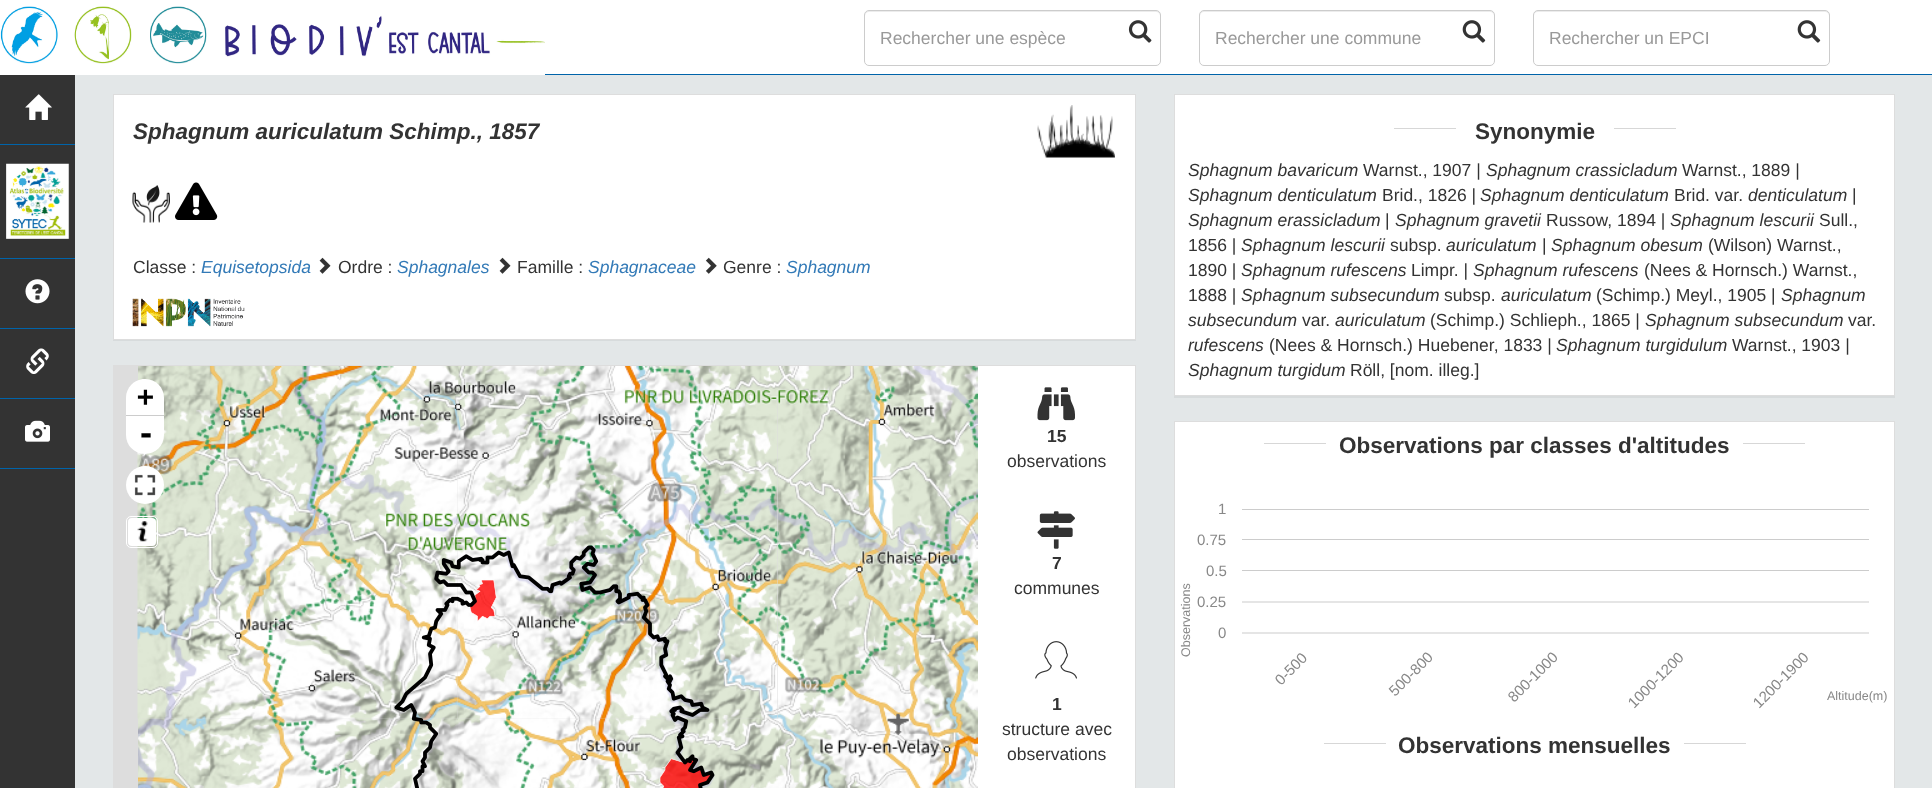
<svg xmlns="http://www.w3.org/2000/svg" width="1932" height="788" viewBox="0 0 1932 788">
  <rect width="100%" height="100%" fill="rgb(227,231,232)"/>
  <rect x="0" y="0" width="1932" height="74" fill="rgb(255,255,255)"/>
  <rect x="545" y="74" width="1387" height="1" fill="rgb(0,100,170)"/>
  <image x="0" y="6" width="545" height="69" href="pic1.png"/>
  <path d="M869 12H1156C1158 12 1160 14 1160 16C1160 13 1159 11 1156 11H869C866 11 865 13 865 16C865 14 867 12 869 12Z" fill="rgb(236,236,236)"/>
  <rect x="864.5" y="10.5" width="296" height="55" rx="4.5" fill="none" stroke="rgb(204,204,204)"/>
  <text x="880" y="44" font-family="Liberation Sans" font-size="17.5" fill="rgb(153,153,153)">Rechercher une espèce</text>
  <image x="1128" y="20" width="24" height="23" href="pic2.png"/>
  <path d="M1204 12H1490C1492 12 1494 14 1494 16C1494 13 1493 11 1490 11H1204C1201 11 1200 13 1200 16C1200 14 1202 12 1204 12Z" fill="rgb(236,236,236)"/>
  <rect x="1199.5" y="10.5" width="295" height="55" rx="4.5" fill="none" stroke="rgb(204,204,204)"/>
  <text x="1215" y="44" font-family="Liberation Sans" font-size="17.5" fill="rgb(153,153,153)">Rechercher une commune</text>
  <image x="1462" y="20" width="24" height="23" href="pic3.png"/>
  <path d="M1538 12H1825C1827 12 1829 14 1829 16C1829 13 1828 11 1825 11H1538C1535 11 1534 13 1534 16C1534 14 1535 12 1538 12Z" fill="rgb(236,236,236)"/>
  <rect x="1533.5" y="10.5" width="296" height="55" rx="4.5" fill="none" stroke="rgb(204,204,204)"/>
  <text x="1549" y="44" font-family="Liberation Sans" font-size="17.5" fill="rgb(153,153,153)">Rechercher un EPCI</text>
  <image x="1797" y="20" width="24" height="23" href="pic3.png"/>
  <rect x="0" y="75" width="75" height="713" fill="rgb(51,51,51)"/>
  <rect x="0" y="144" width="75" height="1" fill="rgb(0,100,170)"/>
  <image x="25" y="94" width="27" height="26" href="pic4.png"/>
  <rect x="0" y="258" width="75" height="1" fill="rgb(0,100,170)"/>
  <image x="6" y="163" width="64" height="76" href="pic5.png"/>
  <rect x="0" y="328" width="75" height="1" fill="rgb(0,100,170)"/>
  <image x="25" y="279" width="25" height="25" href="pic6.png"/>
  <rect x="0" y="398" width="75" height="1" fill="rgb(0,100,170)"/>
  <image x="26" y="348" width="23" height="26" href="pic7.png"/>
  <rect x="0" y="468" width="75" height="1" fill="rgb(0,100,170)"/>
  <image x="25" y="420" width="25" height="22" href="pic8.png"/>
  <rect x="113" y="95" width="1023" height="246" fill="rgba(0,0,0,0.05)" filter="blur(0.5px)"/>
  <rect x="113.5" y="94.5" width="1022" height="245" fill="rgb(255,255,255)" stroke="rgb(221,221,221)"/>
  <text x="133" y="139" font-family="Liberation Sans" font-size="22.5" font-weight="bold" font-style="italic" fill="rgb(51,51,51)">Sphagnum auriculatum Schimp., 1857</text>
  <image x="132" y="185" width="38" height="38" href="pic9.png"/>
  <image x="175" y="182" width="43" height="38" href="pic10.png"/>
  <text x="133" y="273" font-family="Liberation Sans" font-size="17.5" fill="rgb(51,51,51)">Classe :</text>
  <text x="201" y="273" font-family="Liberation Sans" font-size="17.5" font-style="italic" fill="rgb(51,122,183)">Equisetopsida</text>
  <image x="319" y="257" width="12" height="17" href="pic11.png"/>
  <text x="338" y="273" font-family="Liberation Sans" font-size="17.5" fill="rgb(51,51,51)">Ordre :</text>
  <text x="397" y="273" font-family="Liberation Sans" font-size="17.5" font-style="italic" fill="rgb(51,122,183)">Sphagnales</text>
  <image x="499" y="257" width="12" height="17" href="pic11.png"/>
  <text x="517" y="273" font-family="Liberation Sans" font-size="17.5" fill="rgb(51,51,51)">Famille :</text>
  <text x="588" y="273" font-family="Liberation Sans" font-size="17.5" font-style="italic" fill="rgb(51,122,183)">Sphagnaceae</text>
  <image x="705" y="257" width="12" height="17" href="pic12.png"/>
  <text x="723" y="273" font-family="Liberation Sans" font-size="17.5" fill="rgb(51,51,51)">Genre :</text>
  <text x="786" y="273" font-family="Liberation Sans" font-size="17.5" font-style="italic" fill="rgb(51,122,183)">Sphagnum</text>
  <image x="132" y="298" width="113" height="29" href="pic13.png"/>
  <image x="1037" y="105" width="78" height="53" href="pic14.png"/>
  <rect x="978" y="366" width="157" height="422" fill="rgb(255,255,255)"/>
  <rect x="113.5" y="365.5" width="1022" height="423" fill="none" stroke="rgb(221,221,221)"/>
  <rect x="114" y="366" width="664" height="422" fill="rgb(221,221,221)"/>
  <image x="138" y="366" width="320" height="33" href="pic15.png"/>
  <image x="458" y="366" width="320" height="33" href="pic16.png"/>
  <image x="778" y="366" width="200" height="33" href="pic17.png"/>
  <image x="137" y="399" width="321" height="320" href="pic18.png"/>
  <image x="457" y="399" width="321" height="320" href="pic19.png"/>
  <image x="778" y="399" width="200" height="320" href="pic20.png"/>
  <image x="138" y="718" width="320" height="70" href="pic21.png"/>
  <image x="458" y="718" width="320" height="70" href="pic22.png"/>
  <image x="778" y="718" width="200" height="70" href="pic23.png"/>
  <image x="394" y="545" width="321" height="243" href="pic24.png"/>
  <path d="M144.5 379H145.5C155.5 379 164 387.5 164 397.5V416H126V397.5C126 387.5 134.5 379 144.5 379Z" fill="rgb(255,255,255)"/>
  <rect x="126" y="415" width="38" height="1" fill="rgb(204,204,204)"/>
  <text x="137" y="406" font-family="DejaVu Sans Mono" font-size="28" font-weight="bold" fill="rgb(0,0,0)">+</text>
  <path d="M126 416H164V435C164 445.5 155.5 454 145 454C134.5 454 126 445.5 126 435Z" fill="rgb(255,255,255)"/>
  <text x="137" y="444" font-family="DejaVu Sans Mono" font-size="30" font-weight="bold" fill="rgb(0,0,0)">-</text>
  <circle cx="145" cy="485" r="19" fill="rgb(255,255,255)"/>
  <image x="134" y="474" width="22" height="22" href="pic25.png"/>
  <rect x="128" y="518" width="28" height="28" rx="4" fill="rgb(255,255,255)"/>
  <rect x="126.5" y="516.5" width="31" height="31" rx="4.5" fill="none" stroke="rgb(255,255,255)"/>
  <image x="137" y="521" width="11" height="21" href="pic26.png"/>
  <image x="1037" y="387" width="38" height="34" href="pic27.png"/>
  <text x="1047" y="442" font-family="Liberation Sans" font-size="17.5" font-weight="bold" fill="rgb(51,51,51)">15</text>
  <text x="1007" y="467" font-family="Liberation Sans" font-size="17.5" fill="rgb(51,51,51)">observations</text>
  <image x="1037" y="511" width="38" height="38" href="pic28.png"/>
  <text x="1052" y="569" font-family="Liberation Sans" font-size="17.5" font-weight="bold" fill="rgb(51,51,51)">7</text>
  <text x="1014" y="594" font-family="Liberation Sans" font-size="17.5" fill="rgb(51,51,51)">communes</text>
  <image x="1035" y="641" width="42" height="38" href="pic29.png"/>
  <text x="1052" y="710" font-family="Liberation Sans" font-size="17.5" font-weight="bold" fill="rgb(51,51,51)">1</text>
  <g font-family="Liberation Sans" font-size="17.5" fill="rgb(51,51,51)">
    <text x="1002" y="735">structure avec</text>
    <text x="1007" y="760">observations</text>
  </g>
  <rect x="1174" y="95" width="721" height="303" fill="rgba(0,0,0,0.05)" filter="blur(0.5px)"/>
  <rect x="1174.5" y="94.5" width="720" height="301" fill="rgb(255,255,255)" stroke="rgb(221,221,221)"/>
  <rect x="1394" y="128" width="62" height="1" fill="rgb(215,215,215)"/>
  <text x="1475" y="139" font-family="Liberation Sans" font-size="22.5" font-weight="bold" fill="rgb(51,51,51)">Synonymie</text>
  <rect x="1614" y="128" width="62" height="1" fill="rgb(215,215,215)"/>
  <text x="1188" y="176" font-family="Liberation Sans" font-size="17.5" font-style="italic" fill="rgb(51,51,51)">Sphagnum bavaricum</text>
  <text x="1363" y="176" font-family="Liberation Sans" font-size="17.5" fill="rgb(51,51,51)">Warnst., 1907 |</text>
  <text x="1486" y="176" font-family="Liberation Sans" font-size="17.5" font-style="italic" fill="rgb(51,51,51)">Sphagnum crassicladum</text>
  <text x="1682" y="176" font-family="Liberation Sans" font-size="17.5" fill="rgb(51,51,51)">Warnst., 1889 |</text>
  <text x="1188" y="201" font-family="Liberation Sans" font-size="17.5" font-style="italic" fill="rgb(51,51,51)">Sphagnum denticulatum</text>
  <text x="1382" y="201" font-family="Liberation Sans" font-size="17.5" fill="rgb(51,51,51)">Brid., 1826 |</text>
  <text x="1480" y="201" font-family="Liberation Sans" font-size="17.5" font-style="italic" fill="rgb(51,51,51)">Sphagnum denticulatum</text>
  <text x="1674" y="201" font-family="Liberation Sans" font-size="17.5" fill="rgb(51,51,51)">Brid. var.</text>
  <text x="1748" y="201" font-family="Liberation Sans" font-size="17.5" font-style="italic" fill="rgb(51,51,51)">denticulatum</text>
  <text x="1852" y="201" font-family="Liberation Sans" font-size="17.5" fill="rgb(51,51,51)">|</text>
  <text x="1188" y="226" font-family="Liberation Sans" font-size="17.5" font-style="italic" fill="rgb(51,51,51)">Sphagnum erassicladum</text>
  <text x="1385" y="226" font-family="Liberation Sans" font-size="17.5" fill="rgb(51,51,51)">|</text>
  <text x="1395" y="226" font-family="Liberation Sans" font-size="17.5" font-style="italic" fill="rgb(51,51,51)">Sphagnum gravetii</text>
  <text x="1546" y="226" font-family="Liberation Sans" font-size="17.5" fill="rgb(51,51,51)">Russow, 1894 |</text>
  <text x="1670" y="226" font-family="Liberation Sans" font-size="17.5" font-style="italic" fill="rgb(51,51,51)">Sphagnum lescurii</text>
  <g font-family="Liberation Sans" font-size="17.5" fill="rgb(51,51,51)">
    <text x="1819" y="226">Sull.,</text>
    <text x="1188" y="251">1856 |</text>
  </g>
  <text x="1241" y="251" font-family="Liberation Sans" font-size="17.5" font-style="italic" fill="rgb(51,51,51)">Sphagnum lescurii</text>
  <text x="1390" y="251" font-family="Liberation Sans" font-size="17.5" fill="rgb(51,51,51)">subsp.</text>
  <text x="1446" y="251" font-family="Liberation Sans" font-size="17.5" font-style="italic" fill="rgb(51,51,51)">auriculatum</text>
  <text x="1542" y="251" font-family="Liberation Sans" font-size="17.5" fill="rgb(51,51,51)">|</text>
  <text x="1551" y="251" font-family="Liberation Sans" font-size="17.5" font-style="italic" fill="rgb(51,51,51)">Sphagnum obesum</text>
  <g font-family="Liberation Sans" font-size="17.5" fill="rgb(51,51,51)">
    <text x="1708" y="251">(Wilson) Warnst.,</text>
    <text x="1188" y="276">1890 |</text>
  </g>
  <text x="1241" y="276" font-family="Liberation Sans" font-size="17.5" font-style="italic" fill="rgb(51,51,51)">Sphagnum rufescens</text>
  <text x="1411" y="276" font-family="Liberation Sans" font-size="17.5" fill="rgb(51,51,51)">Limpr. |</text>
  <text x="1473" y="276" font-family="Liberation Sans" font-size="17.5" font-style="italic" fill="rgb(51,51,51)">Sphagnum rufescens</text>
  <g font-family="Liberation Sans" font-size="17.5" fill="rgb(51,51,51)">
    <text x="1644" y="276">(Nees &amp; Hornsch.) Warnst.,</text>
    <text x="1188" y="301">1888 |</text>
  </g>
  <text x="1241" y="301" font-family="Liberation Sans" font-size="17.5" font-style="italic" fill="rgb(51,51,51)">Sphagnum subsecundum</text>
  <text x="1444" y="301" font-family="Liberation Sans" font-size="17.5" fill="rgb(51,51,51)">subsp.</text>
  <text x="1501" y="301" font-family="Liberation Sans" font-size="17.5" font-style="italic" fill="rgb(51,51,51)">auriculatum</text>
  <text x="1596" y="301" font-family="Liberation Sans" font-size="17.5" fill="rgb(51,51,51)">(Schimp.) Meyl., 1905 |</text>
  <g font-family="Liberation Sans" font-size="17.5" font-style="italic" fill="rgb(51,51,51)">
    <text x="1781" y="301">Sphagnum</text>
    <text x="1188" y="326">subsecundum</text>
  </g>
  <text x="1302" y="326" font-family="Liberation Sans" font-size="17.5" fill="rgb(51,51,51)">var.</text>
  <text x="1335" y="326" font-family="Liberation Sans" font-size="17.5" font-style="italic" fill="rgb(51,51,51)">auriculatum</text>
  <text x="1430" y="326" font-family="Liberation Sans" font-size="17.5" fill="rgb(51,51,51)">(Schimp.) Schlieph., 1865 |</text>
  <text x="1645" y="326" font-family="Liberation Sans" font-size="17.5" font-style="italic" fill="rgb(51,51,51)">Sphagnum subsecundum</text>
  <text x="1848" y="326" font-family="Liberation Sans" font-size="17.5" fill="rgb(51,51,51)">var.</text>
  <text x="1188" y="351" font-family="Liberation Sans" font-size="17.5" font-style="italic" fill="rgb(51,51,51)">rufescens</text>
  <text x="1269" y="351" font-family="Liberation Sans" font-size="17.5" fill="rgb(51,51,51)">(Nees &amp; Hornsch.) Huebener, 1833 |</text>
  <text x="1556" y="351" font-family="Liberation Sans" font-size="17.5" font-style="italic" fill="rgb(51,51,51)">Sphagnum turgidulum</text>
  <text x="1732" y="351" font-family="Liberation Sans" font-size="17.5" fill="rgb(51,51,51)">Warnst., 1903 |</text>
  <text x="1188" y="376" font-family="Liberation Sans" font-size="17.5" font-style="italic" fill="rgb(51,51,51)">Sphagnum turgidum</text>
  <text x="1350" y="376" font-family="Liberation Sans" font-size="17.5" fill="rgb(51,51,51)">Röll, [nom. illeg.]</text>
  <rect x="1174.5" y="421.5" width="720" height="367" fill="rgb(255,255,255)" stroke="rgb(221,221,221)"/>
  <rect x="1264" y="443" width="62" height="1" fill="rgb(215,215,215)"/>
  <text x="1339" y="453" font-family="Liberation Sans" font-size="22.5" font-weight="bold" fill="rgb(51,51,51)">Observations par classes d'altitudes</text>
  <rect x="1743" y="443" width="62" height="1" fill="rgb(215,215,215)"/>
  <text x="1218" y="514" font-family="Liberation Sans" font-size="15" fill="rgb(136,136,136)">1</text>
  <rect x="1242" y="509" width="627" height="1" fill="rgb(204,204,204)"/>
  <text x="1197" y="545" font-family="Liberation Sans" font-size="15" fill="rgb(136,136,136)">0.75</text>
  <rect x="1242" y="539" width="627" height="1" fill="rgb(204,204,204)"/>
  <text x="1206" y="576" font-family="Liberation Sans" font-size="15" fill="rgb(136,136,136)">0.5</text>
  <rect x="1242" y="570" width="627" height="1" fill="rgb(204,204,204)"/>
  <text x="1190" y="657" transform="rotate(-90 1190 657)" font-family="Liberation Sans" font-size="12.5" fill="rgb(136,136,136)">Observations</text>
  <text x="1197" y="607" font-family="Liberation Sans" font-size="15" fill="rgb(136,136,136)">0.25</text>
  <path d="M1242 602H1869" fill="none" stroke="rgb(170,170,170)" stroke-width="0.6"/>
  <text x="1218" y="638" font-family="Liberation Sans" font-size="15" fill="rgb(136,136,136)">0</text>
  <path d="M1242 633H1869" fill="none" stroke="rgb(170,170,170)" stroke-width="0.6"/>
  <g font-family="Liberation Sans" font-size="15" fill="rgb(136,136,136)">
    <text x="1281" y="686" transform="rotate(-45 1281 686)">0-500</text>
    <text x="1395" y="697" transform="rotate(-45 1395 697)">500-800</text>
    <text x="1514" y="703" transform="rotate(-45 1514 703)">800-1000</text>
    <text x="1634" y="709" transform="rotate(-45 1634 709)">1000-1200</text>
    <text x="1759" y="709" transform="rotate(-45 1759 709)">1200-1900</text>
  </g>
  <text x="1827" y="700" font-family="Liberation Sans" font-size="12.5" fill="rgb(136,136,136)">Altitude(m)</text>
  <rect x="1324" y="743" width="62" height="1" fill="rgb(215,215,215)"/>
  <text x="1398" y="753" font-family="Liberation Sans" font-size="22.5" font-weight="bold" fill="rgb(51,51,51)">Observations mensuelles</text>
  <rect x="1684" y="743" width="62" height="1" fill="rgb(215,215,215)"/>
</svg>
